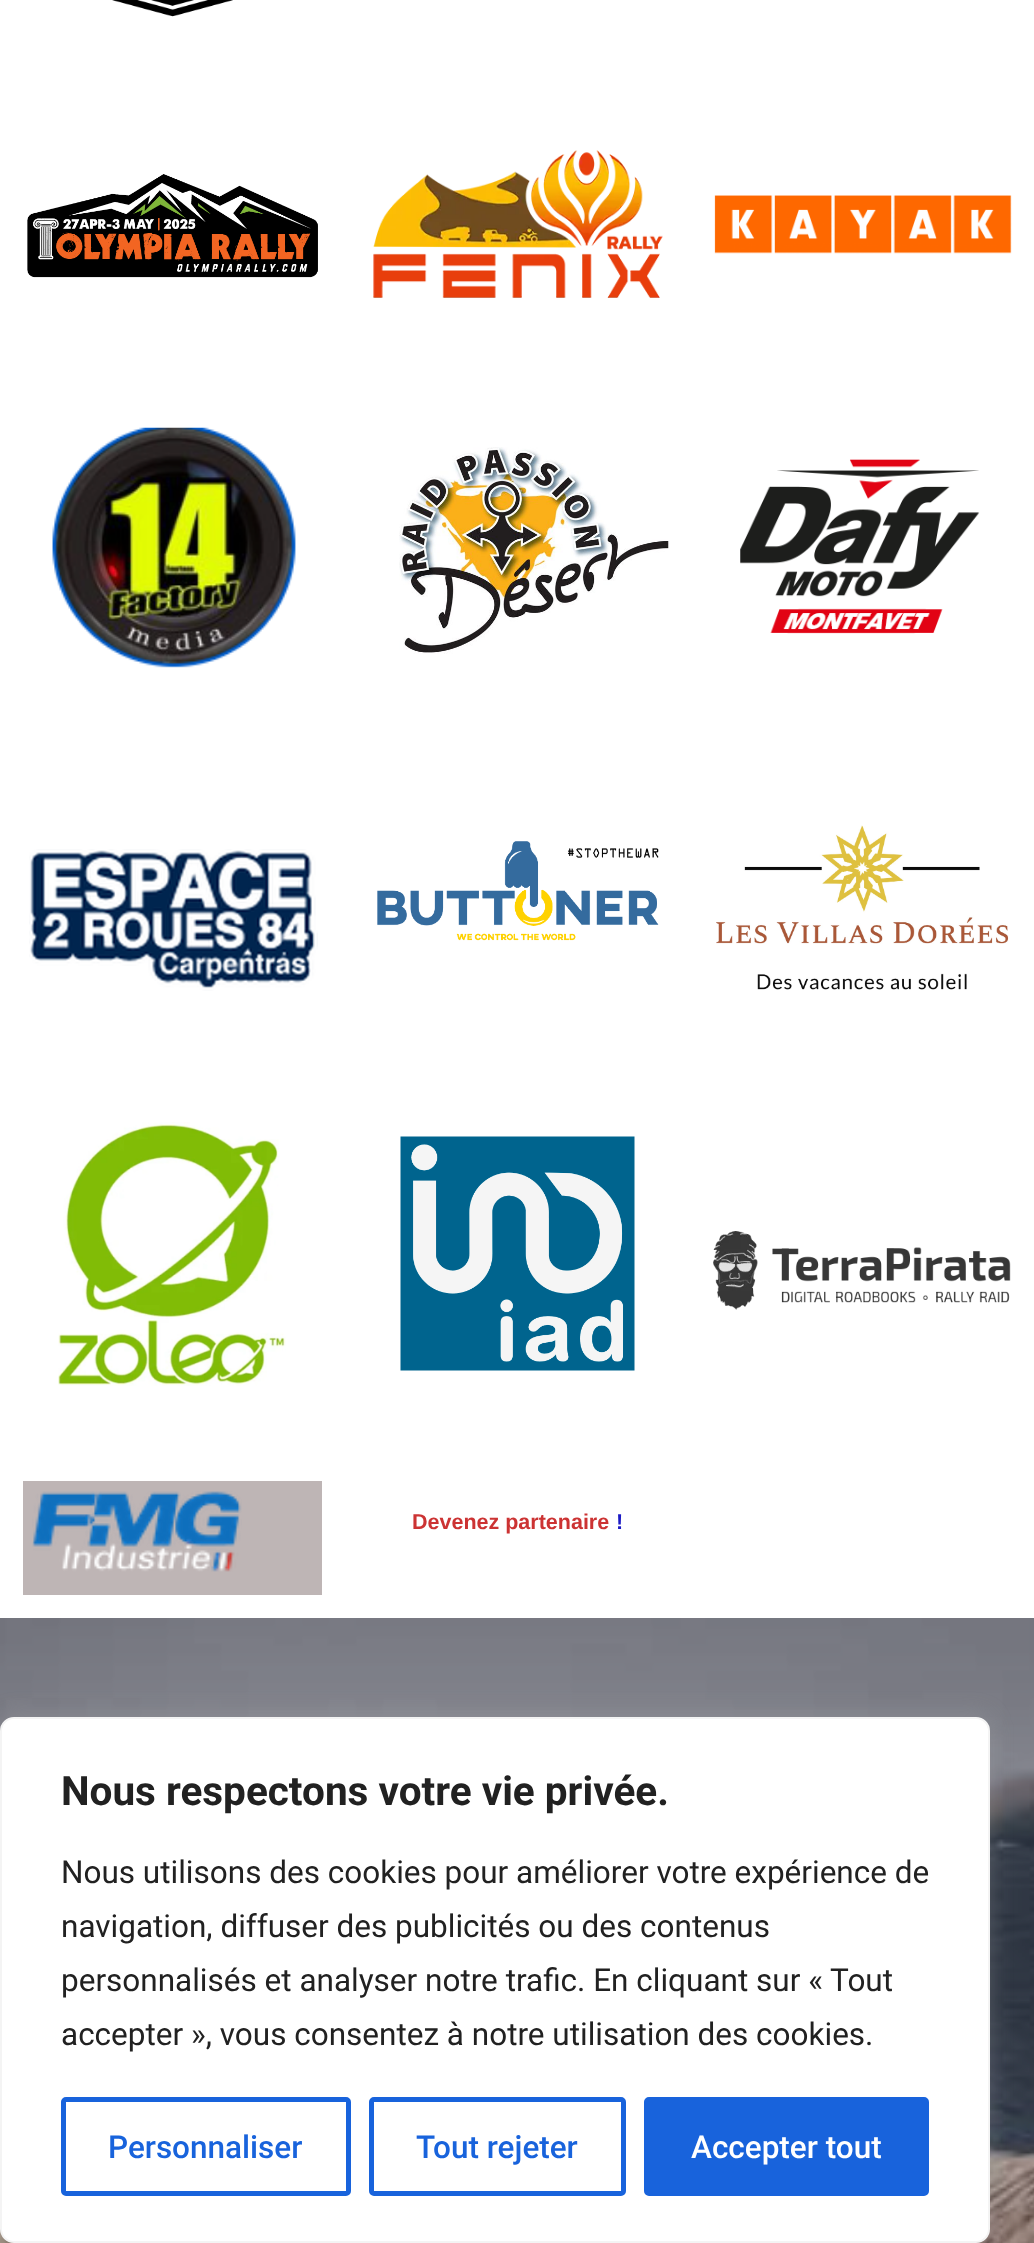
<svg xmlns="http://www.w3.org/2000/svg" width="1034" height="2243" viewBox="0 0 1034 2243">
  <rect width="100%" height="100%" fill="rgb(255,255,255)"/>
  <image x="112" y="0" width="121" height="17" href="pic1.png"/>
  <image x="27" y="174" width="291" height="104" href="pic2.png"/>
  <image x="373" y="150" width="290" height="148" href="pic3.png"/>
  <image x="714" y="195" width="298" height="59" href="pic4.png"/>
  <image x="52" y="427" width="244" height="241" href="pic5.png"/>
  <image x="399" y="447" width="270" height="207" href="pic6.png"/>
  <image x="740" y="459" width="240" height="175" href="pic7.png"/>
  <image x="29" y="849" width="289" height="142" href="pic8.png"/>
  <image x="377" y="841" width="282" height="100" href="pic9.png"/>
  <image x="716" y="825" width="293" height="165" href="pic10.png"/>
  <image x="58" y="1122" width="228" height="264" href="pic11.png"/>
  <image x="400" y="1136" width="235" height="235" href="pic12.png"/>
  <image x="713" y="1231" width="298" height="79" href="pic13.png"/>
  <rect x="23" y="1481" width="299" height="114" fill="rgb(190,181,181)"/>
  <image x="32" y="1491" width="210" height="81" href="pic14.png"/>
  <text x="412" y="1529" font-family="Liberation Sans" font-size="21.5" font-weight="bold" fill="rgb(204,51,51)">Devenez partenaire</text>
  <text x="616" y="1529" font-family="Liberation Sans" font-size="21.5" font-weight="bold" fill="rgb(27,26,197)">!</text>
  <image x="0" y="1618" width="1034" height="625" href="pic15.png"/>
  <rect x="0" y="1715" width="990" height="526" rx="14" fill="rgba(172,171,171,0.3)" filter="blur(11px)"/>
  <rect x="1" y="1718" width="988" height="524" rx="13" fill="rgb(255,255,255)" stroke="rgb(244,244,244)" stroke-width="2"/>
  <text x="61" y="1805" font-family="Roboto" font-size="40.5" font-weight="bold" fill="rgb(33,33,33)">Nous respectons votre vie privée.</text>
  <g font-family="Roboto" font-size="31.5" fill="rgb(33,33,33)">
    <text>
      <tspan x="61" y="1883">Nous utilisons des cookies pour améliorer votre expérience de</tspan>
      <tspan x="61" y="1937">navigation, diffuser des publicités ou des contenus</tspan>
      <tspan x="61" y="1991">personnalisés et analyser notre trafic. En cliquant sur « Tout</tspan>
      <tspan x="61" y="2045">accepter », vous consentez à notre utilisation des cookies.</tspan>
    </text>
  </g>
  <rect x="63.5" y="2099.5" width="285" height="94" rx="2.5" fill="none" stroke="rgb(24,99,220)" stroke-width="5"/>
  <text x="108" y="2158" font-family="Roboto" font-size="31.5" font-weight="500" fill="rgb(24,99,220)">Personnaliser</text>
  <rect x="371.5" y="2099.5" width="252" height="94" rx="2.5" fill="none" stroke="rgb(24,99,220)" stroke-width="5"/>
  <text x="416" y="2158" font-family="Roboto" font-size="31.5" font-weight="500" fill="rgb(24,99,220)">Tout rejeter</text>
  <rect x="646.5" y="2099.5" width="280" height="94" rx="2.5" fill="rgb(24,99,220)" stroke="rgb(24,99,220)" stroke-width="5"/>
  <text x="691" y="2158" font-family="Roboto" font-size="31.5" font-weight="500" fill="rgb(255,255,255)">Accepter tout</text>
</svg>
